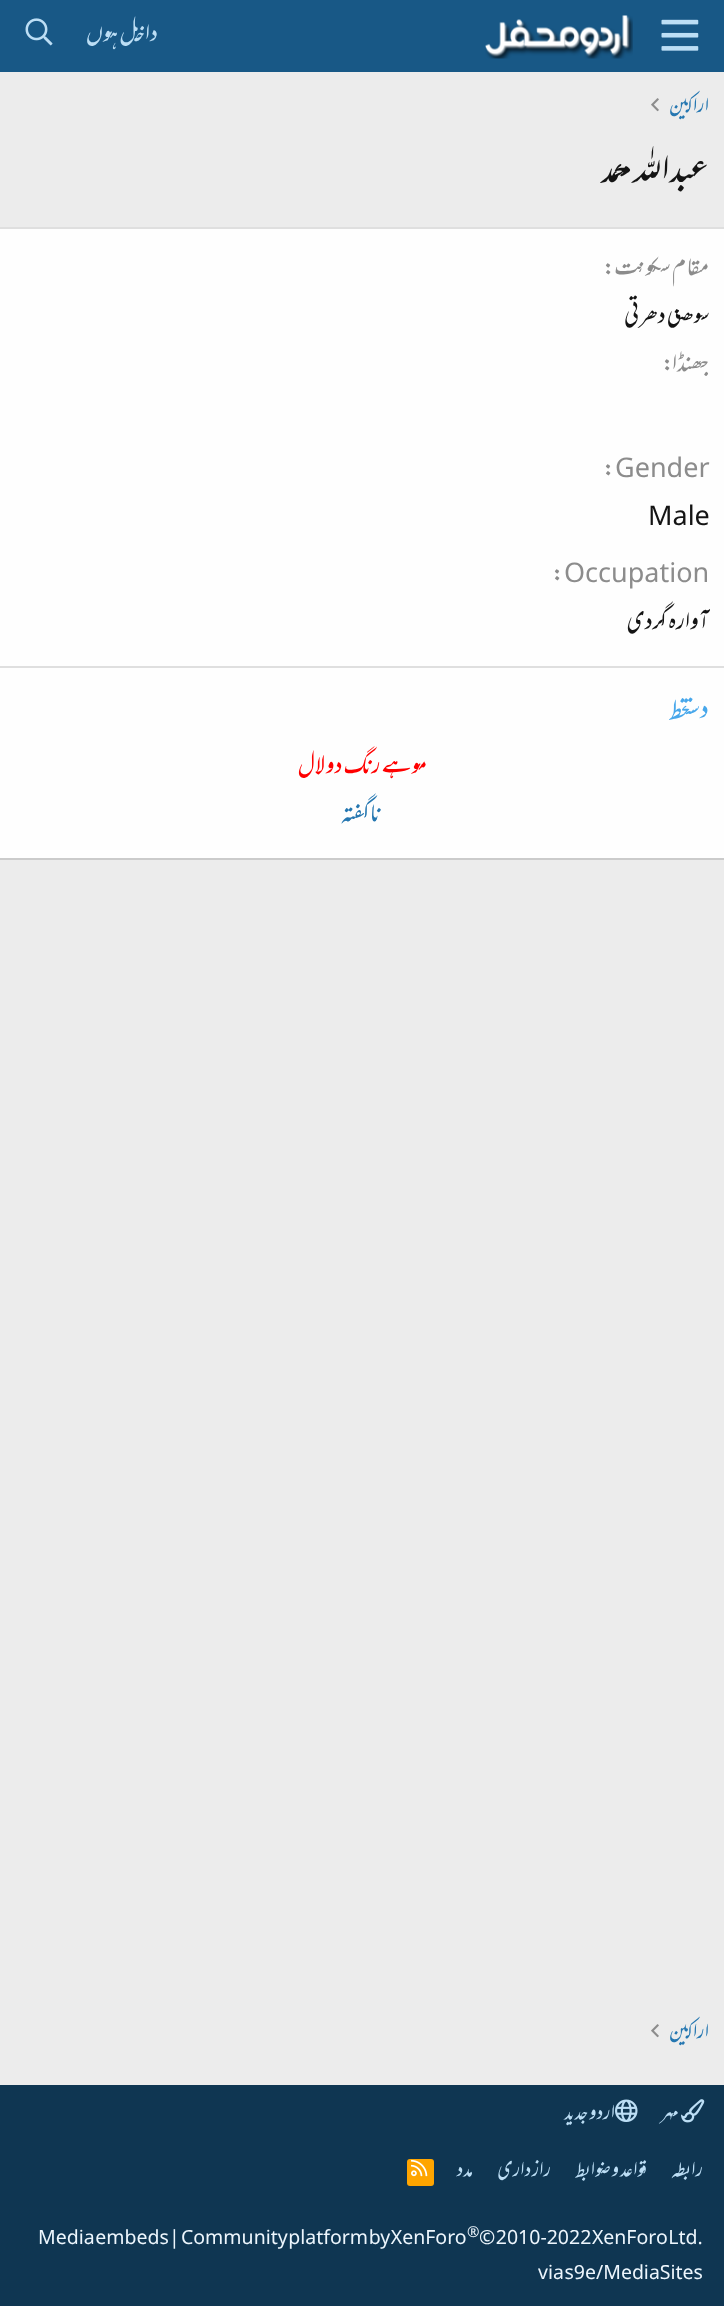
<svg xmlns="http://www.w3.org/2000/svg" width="724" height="2306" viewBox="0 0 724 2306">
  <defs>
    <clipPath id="clip1"><rect x="669" y="87" width="41" height="42"/></clipPath>
    <clipPath id="clip2"><rect x="15" y="552" width="695" height="96"/></clipPath>
    <clipPath id="clip3"><rect x="669" y="2013" width="41" height="42"/></clipPath>
  </defs>
  <rect width="100%" height="100%" fill="rgb(236,236,236)"/>
  <rect x="0" y="0" width="724" height="72" fill="rgb(24,88,134)"/>
  <image x="661" y="19" width="38" height="32" href="pic1.png"/>
  <image x="485" y="15" width="148" height="44" href="pic2.png"/>
  <text x="158" y="42" font-family="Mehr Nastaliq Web" font-size="27" direction="rtl" fill="rgb(188,222,245)">داخل ہوں</text>
  <image x="25" y="18" width="28" height="28" href="pic3.png"/>
  <g clip-path="url(#clip1)">
    <text x="709" y="113" font-family="Mehr Nastaliq Web" font-size="23" direction="rtl" fill="rgb(37,119,177)">اراکین</text>
  </g>
  <image x="651" y="98" width="8" height="14" href="pic4.png"/>
  <text x="709" y="183" font-family="Mehr Nastaliq Web" font-size="42" direction="rtl" fill="rgb(20,20,20)">عبداللہ محمد</text>
  <rect x="0" y="229" width="724" height="629" fill="rgb(254,254,254)"/>
  <rect x="0" y="227" width="724" height="2" fill="rgb(223,223,223)"/>
  <rect x="0" y="858" width="724" height="2" fill="rgb(203,203,203)"/>
  <text x="709" y="276" font-family="Mehr Nastaliq Web" font-size="27" direction="rtl" fill="rgb(140,140,140)">مقام سکونت</text>
  <text x="603" y="276" font-family="Mehr Nastaliq Web" font-size="27" fill="rgb(140,140,140)">:</text>
  <text x="710" y="324" font-family="Mehr Nastaliq Web" font-size="27" direction="rtl" fill="rgb(20,20,20)">سوھنی دھرتی</text>
  <text x="709" y="372" font-family="Mehr Nastaliq Web" font-size="27" direction="rtl" fill="rgb(140,140,140)">جھنڈا</text>
  <text x="662" y="372" font-family="Mehr Nastaliq Web" font-size="27" fill="rgb(140,140,140)">:</text>
  <text x="615" y="477" font-family="Noto Sans" font-size="27" fill="rgb(140,140,140)">Gender</text>
  <text x="603" y="477" font-family="Mehr Nastaliq Web" font-size="27" fill="rgb(140,140,140)">:</text>
  <text x="648" y="525" font-family="Noto Sans" font-size="27" fill="rgb(20,20,20)">Male</text>
  <text x="564" y="582" font-family="Noto Sans" font-size="27" fill="rgb(140,140,140)">Occupation</text>
  <text x="552" y="582" font-family="Mehr Nastaliq Web" font-size="27" fill="rgb(140,140,140)">:</text>
  <g clip-path="url(#clip2)">
    <text x="709" y="630" font-family="Mehr Nastaliq Web" font-size="27" direction="rtl" fill="rgb(20,20,20)">آوارہ گردی</text>
  </g>
  <rect x="0" y="666" width="724" height="2" fill="rgb(223,223,223)"/>
  <text x="709" y="719" font-family="Mehr Nastaliq Web" font-size="30" direction="rtl" fill="rgb(71,167,235)">دستخط</text>
  <text x="427" y="774" font-family="Mehr Nastaliq Web" font-size="27" direction="rtl" fill="rgb(255,0,0)">موہے رنگ دو لال</text>
  <text x="381" y="822" font-family="Mehr Nastaliq Web" font-size="27" direction="rtl" fill="rgb(37,119,177)">ناگفتہ</text>
  <g clip-path="url(#clip3)">
    <text x="709" y="2039" font-family="Mehr Nastaliq Web" font-size="23" direction="rtl" fill="rgb(37,119,177)">اراکین</text>
  </g>
  <image x="651" y="2024" width="8" height="14" href="pic4.png"/>
  <rect x="0" y="2085" width="724" height="221" fill="rgb(15,54,82)"/>
  <image x="681" y="2099" width="24" height="24" href="pic5.png"/>
  <text x="679" y="2120" font-family="Mehr Nastaliq Web" font-size="23" direction="rtl" fill="rgb(188,222,245)">مہر</text>
  <image x="615" y="2099" width="23" height="23" href="pic6.png"/>
  <g font-family="Mehr Nastaliq Web" font-size="23" direction="rtl" fill="rgb(188,222,245)">
    <text x="615" y="2120">اردو جدید</text>
    <text x="703" y="2177">رابطہ</text>
    <text x="647" y="2177">قواعد و ضوابط</text>
    <text x="551" y="2177">راز داری</text>
    <text x="473" y="2177">مدد</text>
  </g>
  <rect x="407" y="2159" width="27" height="27" rx="3" fill="rgb(255,165,0)"/>
  <image x="411" y="2159" width="17" height="18" href="pic7.png"/>
  <text x="479" y="2244" word-spacing="-4.5" font-family="Noto Sans" font-size="19.5" fill="rgb(237,246,253)">© 2010-2022 XenForo Ltd.</text>
  <text x="467" y="2237" font-family="Noto Sans" font-size="15" fill="rgb(237,246,253)">®</text>
  <g font-family="Noto Sans" font-size="19.5" fill="rgb(237,246,253)">
    <text x="181" y="2244" word-spacing="-4.5">Community platform by XenForo</text>
    <text x="169" y="2244">|</text>
    <text x="38" y="2244" word-spacing="-4.5">Media embeds</text>
    <text x="538" y="2279" word-spacing="-4.5">via s9e/MediaSites</text>
  </g>
</svg>
